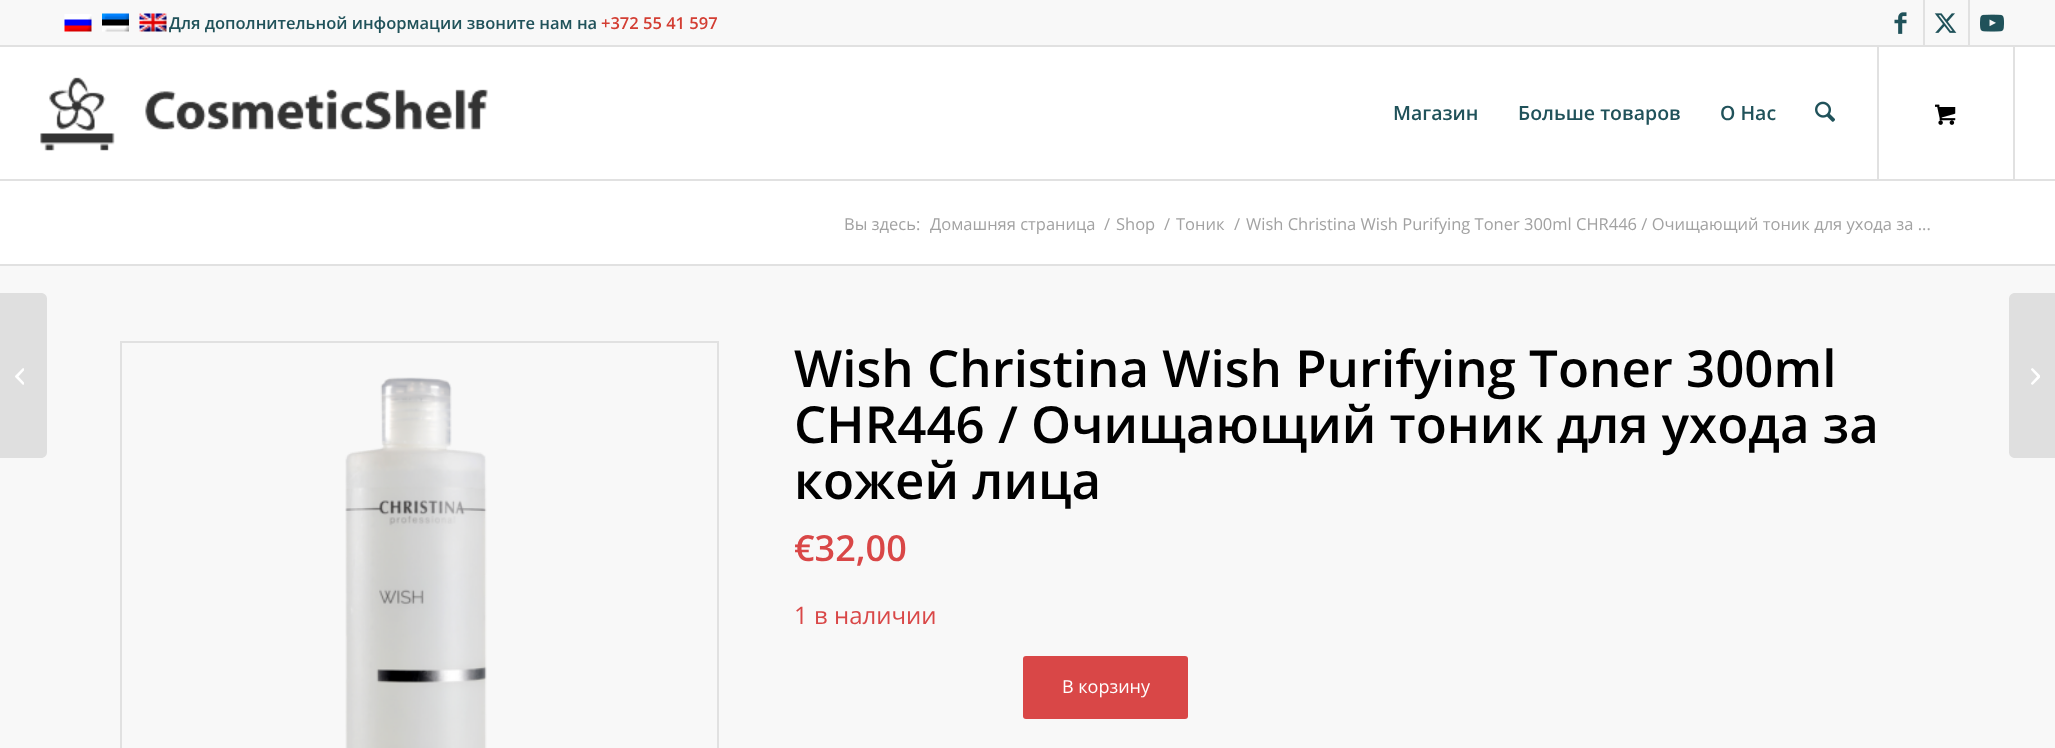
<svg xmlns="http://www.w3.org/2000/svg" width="2055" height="748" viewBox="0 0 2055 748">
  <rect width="100%" height="100%" fill="rgb(255,255,255)"/>
  <rect x="0" y="0" width="2055" height="45" fill="rgb(248,248,248)"/>
  <rect x="0" y="45" width="2055" height="2" fill="rgb(225,225,225)"/>
  <image x="64" y="14" width="28" height="18" href="pic1.png"/>
  <image x="102" y="13" width="27" height="19" href="pic2.png"/>
  <image x="139" y="13" width="28" height="19" href="pic3.png"/>
  <text x="169" y="29" font-family="Open Sans" font-size="16.5" font-weight="600" fill="rgb(32,82,90)">Для дополнительной информации звоните нам на</text>
  <text x="601" y="29" font-family="Open Sans" font-size="16.5" font-weight="600" fill="rgb(211,62,51)">+372 55 41 597</text>
  <rect x="1923" y="0" width="2" height="45" fill="rgb(225,225,225)"/>
  <image x="1894" y="12" width="13" height="22" href="pic4.png"/>
  <rect x="1968" y="0" width="2" height="45" fill="rgb(225,225,225)"/>
  <image x="1934" y="13" width="23" height="20" href="pic5.png"/>
  <image x="1980" y="14" width="24" height="18" href="pic6.png"/>
  <rect x="0" y="179" width="2055" height="2" fill="rgb(225,225,225)"/>
  <image x="40" y="77" width="448" height="74" href="pic7.png"/>
  <g font-family="Open Sans" font-size="19.5" font-weight="600" fill="rgb(32,82,90)">
    <text x="1393" y="120">Магазин</text>
    <text x="1518" y="120">Больше товаров</text>
    <text x="1720" y="120">О Нас</text>
  </g>
  <image x="1815" y="101" width="20" height="21" href="pic8.png"/>
  <rect x="2013" y="47" width="2" height="132" fill="rgb(225,225,225)"/>
  <rect x="1877" y="47" width="2" height="132" fill="rgb(225,225,225)"/>
  <image x="1935" y="104" width="21" height="21" href="pic9.png"/>
  <rect x="0" y="266" width="2055" height="482" fill="rgb(248,248,248)"/>
  <path d="M0 293H41C44.5 293 47 295.5 47 299V452C47 455.5 44.5 458 41 458H0Z" fill="rgb(223,223,223)"/>
  <image x="15" y="368" width="9" height="17" href="pic10.png"/>
  <g font-family="Open Sans" font-size="16.5" fill="rgb(162,162,162)">
    <text x="844" y="230">Вы здесь:</text>
    <text x="930" y="230">Домашняя страница</text>
    <text x="1104" y="230">/</text>
    <text x="1116" y="230">Shop</text>
    <text x="1164" y="230">/</text>
    <text x="1176" y="230">Тоник</text>
    <text x="1234" y="230">/</text>
    <text x="1246" y="230">Wish Christina Wish Purifying Toner 300ml CHR446 / Очищающий тоник для ухода за ...</text>
  </g>
  <rect x="0" y="264" width="2055" height="2" fill="rgb(225,225,225)"/>
  <rect x="121" y="342" width="597" height="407" fill="none" stroke="rgb(225,225,225)" stroke-width="2"/>
  <image x="345" y="377" width="142" height="371" href="pic11.png"/>
  <g font-family="Open Sans" font-size="51" font-weight="600" fill="rgb(0,0,0)">
    <text>
      <tspan x="794" y="387">Wish Christina Wish Purifying Toner 300ml</tspan>
      <tspan x="794" y="443">CHR446 / Очищающий тоник для ухода за</tspan>
      <tspan x="794" y="499">кожей лица</tspan>
    </text>
  </g>
  <text x="794" y="561" font-family="Open Sans" font-size="36" font-weight="600" fill="rgb(217,71,71)">€32,00</text>
  <text x="794" y="624" font-family="Open Sans" font-size="24" fill="rgb(217,71,71)">1 в наличии</text>
  <rect x="1023" y="656" width="165" height="63" rx="3" fill="rgb(217,71,71)"/>
  <text x="1062" y="693" font-family="Open Sans" font-size="18" fill="rgb(255,255,255)">В корзину</text>
  <path d="M2015 293H2055V458H2015C2011.5 458 2009 455.5 2009 452V299C2009 295.5 2011.5 293 2015 293Z" fill="rgb(223,223,223)"/>
  <image x="2031" y="368" width="9" height="17" href="pic12.png"/>
</svg>
